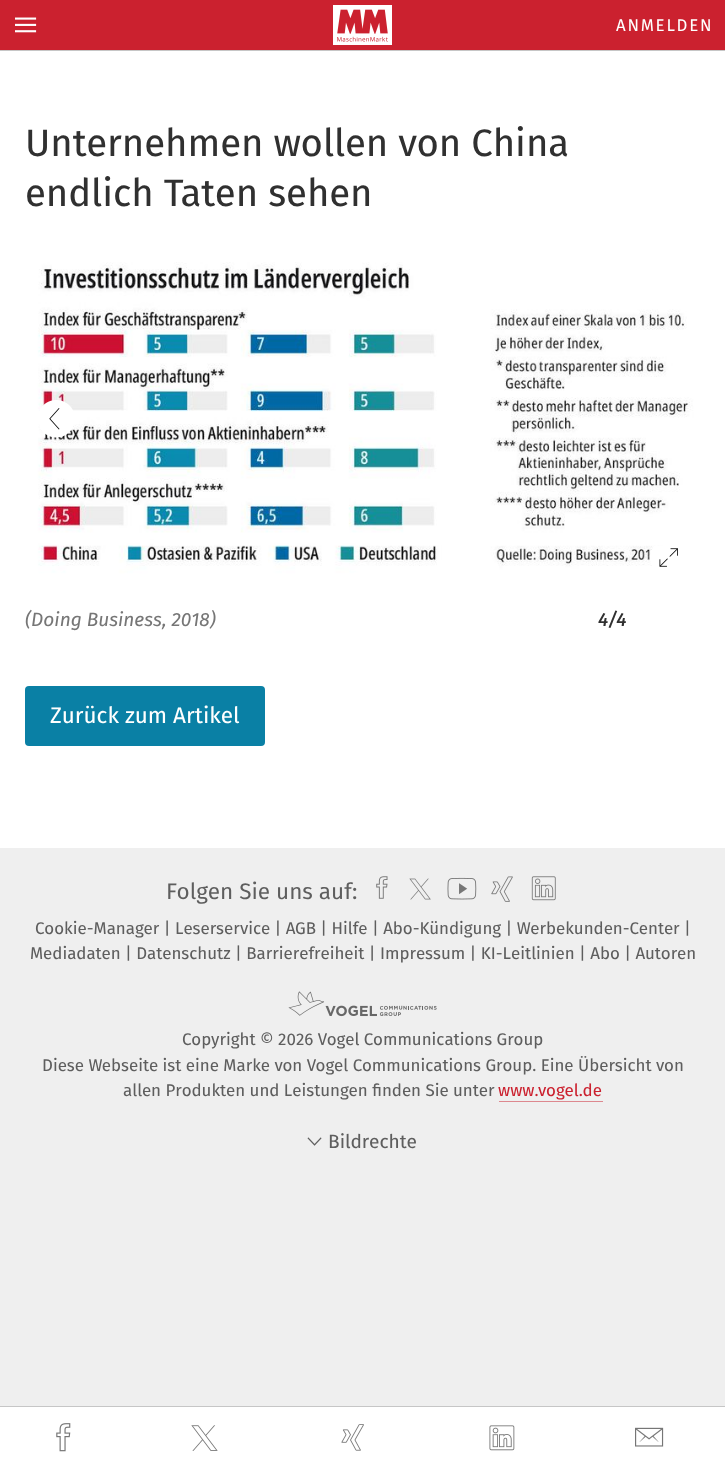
<svg xmlns="http://www.w3.org/2000/svg" width="725" height="1468" viewBox="0 0 725 1468">
  <rect width="100%" height="100%" fill="rgb(239,239,239)"/>
  <rect x="0" y="51" width="725" height="797" fill="rgb(255,255,255)"/>
  <rect x="0" y="50" width="725" height="1" fill="rgb(198,198,198)"/>
  <rect x="0" y="0" width="725" height="50" fill="rgb(203,33,47)"/>
  <image x="15" y="17" width="22" height="16" href="pic1.png"/>
  <image x="333" y="5" width="59" height="40" href="pic2.png"/>
  <text x="616" y="31" font-family="'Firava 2'" font-size="16.9" letter-spacing="1.75" fill="rgb(255,255,255)">ANMELDEN</text>
  <g font-family="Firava" font-size="38.25" fill="rgb(48,48,48)">
    <text>
      <tspan x="25" y="156">Unternehmen wollen von China</tspan>
      <tspan x="25" y="206">endlich Taten sehen</tspan>
    </text>
  </g>
  <image x="25" y="249" width="675" height="340" href="pic3.png"/>
  <image x="40" y="400" width="33" height="38" href="pic4.png"/>
  <image x="650" y="546" width="28" height="21" href="pic5.png"/>
  <text x="25" y="626" font-family="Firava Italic" font-size="19.1" font-style="italic" fill="rgb(118,118,118)">(Doing Business, 2018)</text>
  <text x="598" y="626" font-family="Firava Italic" font-size="19.1" font-weight="500" font-style="italic" fill="rgb(48,48,48)">4/4</text>
  <rect x="25" y="686" width="240" height="60" rx="4" fill="rgb(10,128,165)"/>
  <text x="50" y="723" font-family="Firava" font-size="22.5" fill="rgb(255,255,255)">Zurück zum Artikel</text>
  <rect x="0" y="1407" width="725" height="61" fill="rgb(255,255,255)"/>
  <rect x="0" y="1406" width="725" height="1" fill="rgb(198,198,198)"/>
  <image x="56" y="1423" width="15" height="29" href="pic6.png"/>
  <image x="191" y="1425" width="27" height="26" href="pic7.png"/>
  <image x="341" y="1424" width="23" height="27" href="pic8.png"/>
  <image x="489" y="1425" width="26" height="26" href="pic9.png"/>
  <image x="635" y="1427" width="29" height="20" href="pic10.png"/>
  <text x="166" y="899" font-family="'Firava 2'" font-size="22.5" fill="rgb(94,94,94)">Folgen Sie uns auf:</text>
  <image x="376" y="876" width="12" height="23" href="pic11.png"/>
  <image x="409" y="878" width="22" height="22" href="pic12.png"/>
  <image x="447" y="877" width="30" height="23" href="pic13.png"/>
  <image x="491" y="876" width="22" height="26" href="pic14.png"/>
  <image x="531" y="876" width="25" height="25" href="pic15.png"/>
  <g font-family="Firava" font-size="16.9" fill="rgb(94,94,94)">
    <text x="35" y="934">Cookie-Manager | Leserservice | AGB | Hilfe | Abo-Kündigung | Werbekunden-Center |</text>
    <text x="30" y="959">Mediadaten | Datenschutz | Barrierefreiheit | Impressum | KI-Leitlinien | Abo | Autoren</text>
  </g>
  <image x="288" y="991" width="149" height="26" href="pic16.png"/>
  <g font-family="Firava" font-size="16.9" fill="rgb(94,94,94)">
    <text x="182" y="1045">Copyright © 2026 Vogel Communications Group</text>
    <text x="42" y="1071">Diese Webseite ist eine Marke von Vogel Communications Group. Eine Übersicht von</text>
    <text x="123" y="1096">allen Produkten und Leistungen finden Sie unter</text>
  </g>
  <text x="498" y="1096" font-family="Firava" font-size="16.9" fill="rgb(203,33,47)">www.vogel.de</text>
  <rect x="499" y="1101" width="104" height="1" fill="rgb(221,136,143)"/>
  <image x="307" y="1137" width="15" height="9" href="pic17.png"/>
  <text x="328" y="1148" font-family="Firava" font-size="19.1" fill="rgb(94,94,94)">Bildrechte</text>
</svg>
